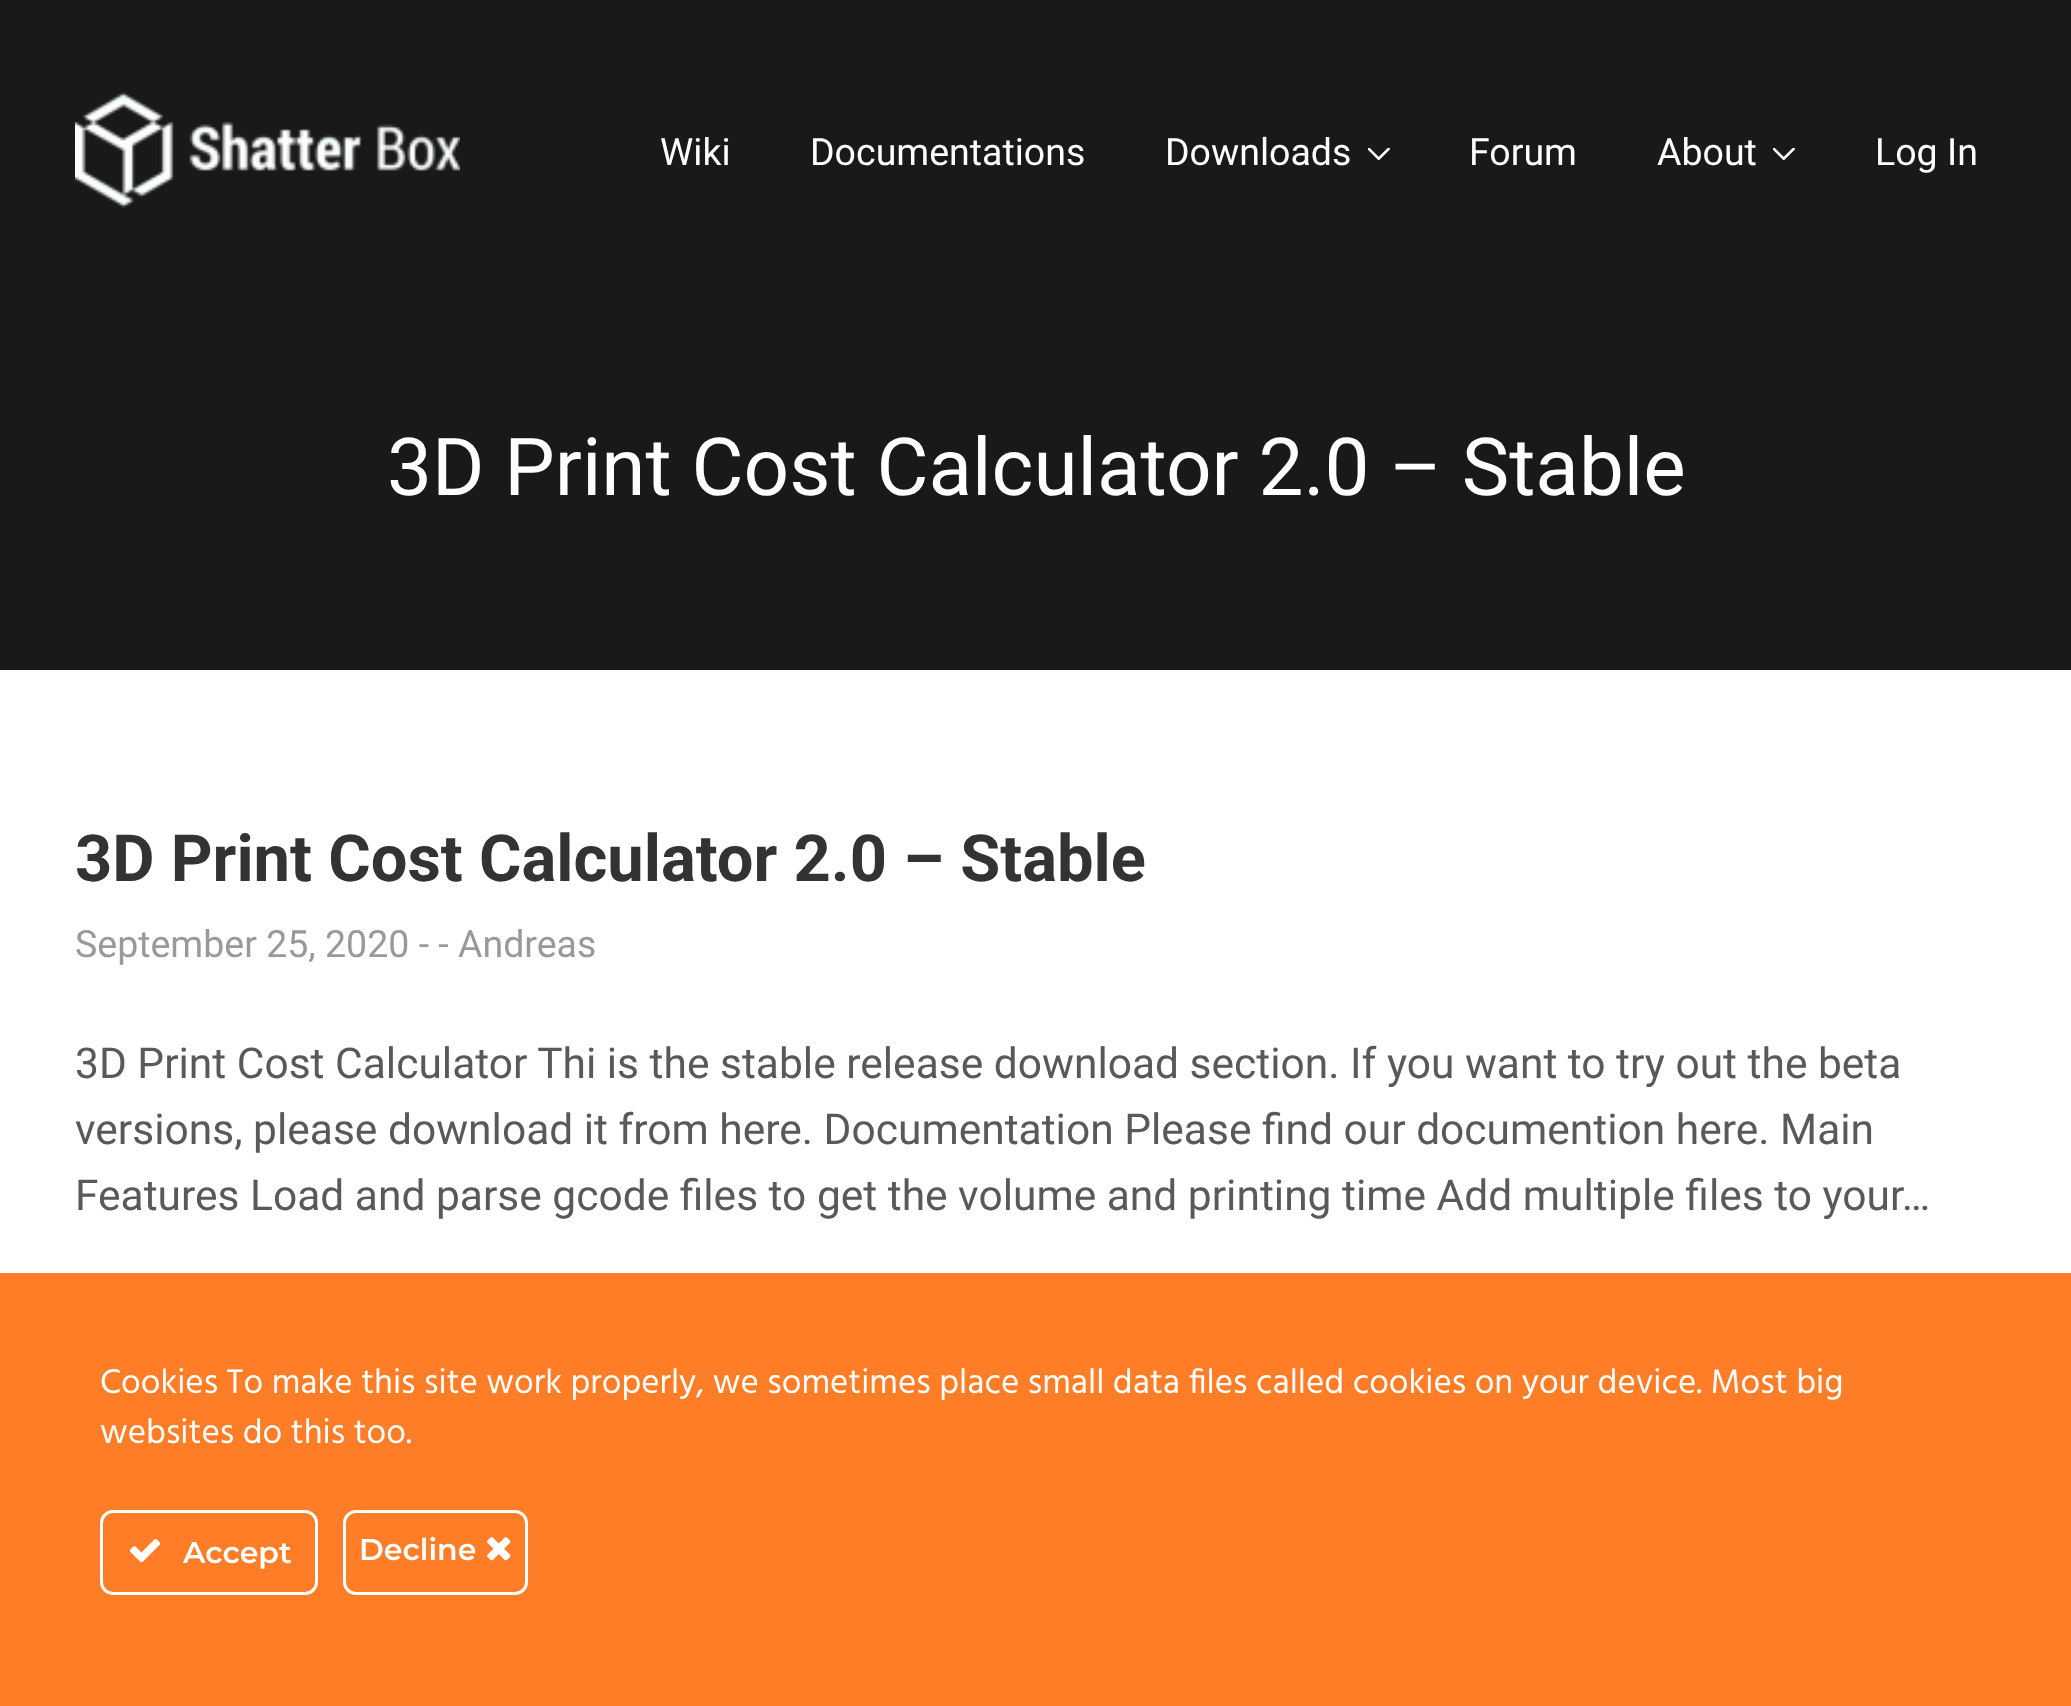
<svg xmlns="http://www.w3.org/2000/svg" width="2071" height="1706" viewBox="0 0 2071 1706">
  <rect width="100%" height="100%" fill="rgb(255,255,255)"/>
  <rect x="0" y="0" width="2071" height="670" fill="rgb(25,25,25)"/>
  <image x="75" y="92" width="385" height="117" href="pic1.png"/>
  <g font-family="Roboto" font-size="37.5" fill="rgb(255,255,255)">
    <text x="660" y="165">Wiki</text>
    <text x="810" y="165">Documentations</text>
    <text x="1165" y="165">Downloads</text>
  </g>
  <image x="1368" y="148" width="22" height="12" href="pic2.png"/>
  <g font-family="Roboto" font-size="37.5" fill="rgb(255,255,255)">
    <text x="1469" y="165">Forum</text>
    <text x="1657" y="165">About</text>
  </g>
  <image x="1773" y="148" width="22" height="12" href="pic2.png"/>
  <text x="1875" y="165" font-family="Roboto" font-size="37.5" fill="rgb(255,255,255)">Log In</text>
  <text x="387" y="495" font-family="Roboto" font-size="80" fill="rgb(255,255,255)">3D Print Cost Calculator 2.0 – Stable</text>
  <text x="75" y="881" font-family="Roboto" font-size="65" font-weight="bold" fill="rgb(51,51,51)">3D Print Cost Calculator 2.0 – Stable</text>
  <text x="75" y="957" font-family="Roboto" font-size="37.5" fill="rgb(153,153,153)">September 25, 2020 - - Andreas</text>
  <g font-family="Roboto" font-size="42.5" fill="rgb(89,89,89)">
    <text>
      <tspan x="75" y="1078">3D Print Cost Calculator Thi is the stable release download section. If you want to try out the beta</tspan>
      <tspan x="75" y="1144">versions, please download it from here. Documentation Please find our documention here. Main</tspan>
      <tspan x="75" y="1210">Features Load and parse gcode files to get the volume and printing time Add multiple files to your…</tspan>
    </text>
  </g>
  <rect x="0" y="1273" width="2071" height="433" fill="rgb(255,125,39)"/>
  <g font-family="Hind" font-size="35" fill="rgb(255,255,255)">
    <text>
      <tspan x="100" y="1393">Cookies To make this site work properly, we sometimes place small data files called cookies on your device. Most big</tspan>
      <tspan x="100" y="1443">websites do this too.</tspan>
    </text>
  </g>
  <rect x="101.5" y="1511.5" width="215" height="82" rx="11.5" fill="none" stroke="rgb(255,255,255)" stroke-width="3"/>
  <image x="129" y="1539" width="32" height="24" href="pic3.png"/>
  <text x="183" y="1563" font-family="Montserrat" font-size="30" font-weight="600" fill="rgb(255,255,255)">Accept</text>
  <rect x="344.5" y="1511.5" width="182" height="82" rx="11.5" fill="none" stroke="rgb(255,255,255)" stroke-width="3"/>
  <text x="359" y="1560" font-family="Montserrat" font-size="30" font-weight="600" fill="rgb(255,255,255)">Decline</text>
  <image x="487" y="1537" width="24" height="24" href="pic4.png"/>
</svg>
